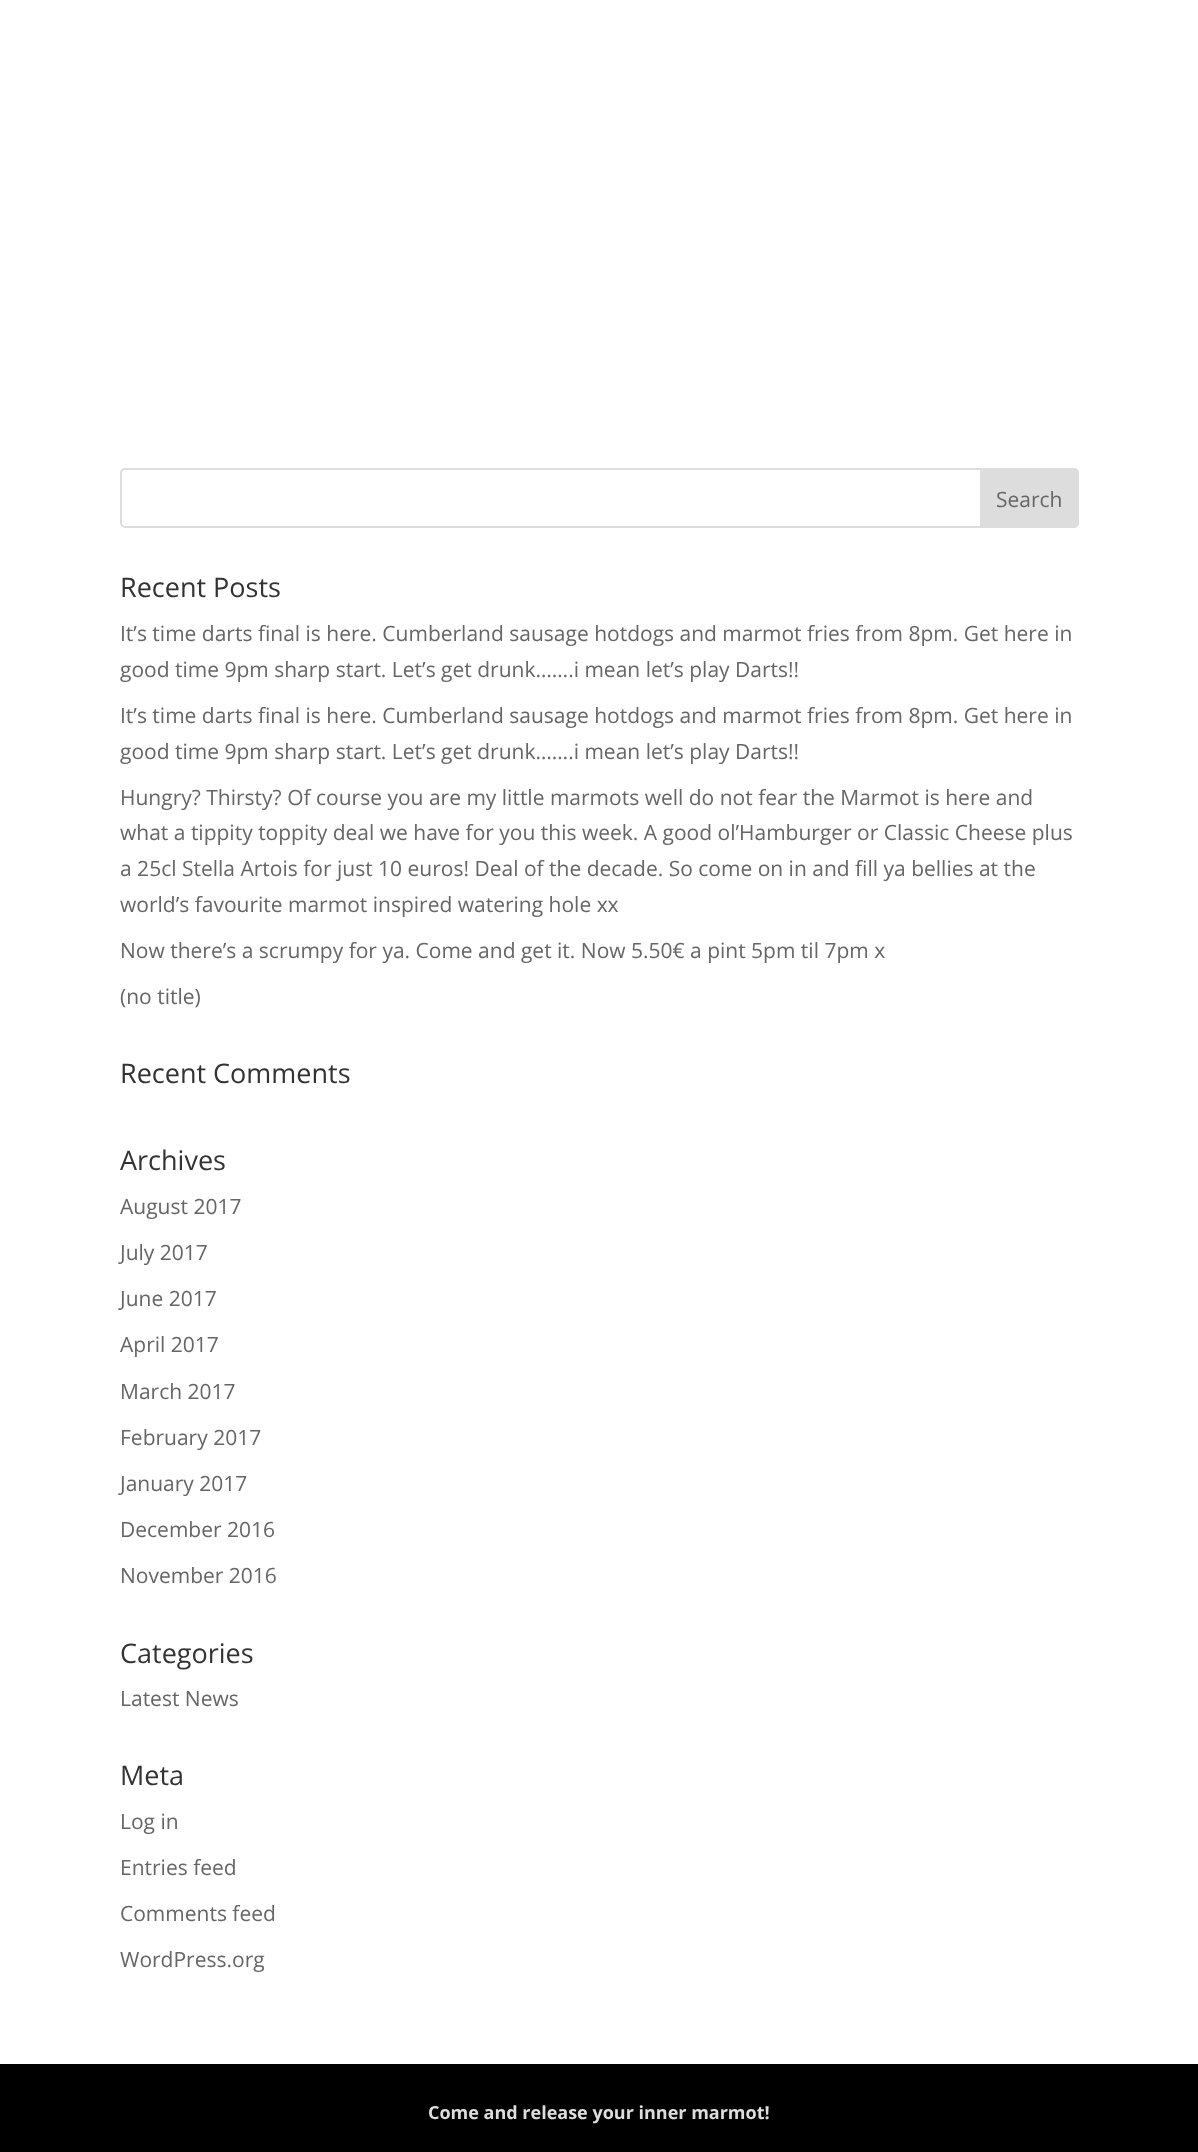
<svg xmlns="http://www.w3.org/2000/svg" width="1198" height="2152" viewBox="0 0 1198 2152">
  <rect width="100%" height="100%" fill="rgb(255,255,255)"/>
  <rect x="121" y="469" width="957" height="58" rx="4" fill="none" stroke="rgb(221,221,221)" stroke-width="2"/>
  <path d="M981 469H1074C1076 469 1078 471 1078 473V523C1078 525 1076 527 1074 527H981Z" fill="rgb(221,221,221)" stroke="rgb(221,221,221)" stroke-width="2"/>
  <text x="996" y="507" font-family="Open Sans" font-size="21" fill="rgb(102,102,102)">Search</text>
  <text x="120" y="597" font-family="Open Sans" font-size="27" fill="rgb(51,51,51)">Recent Posts</text>
  <g font-family="Open Sans" font-size="21" fill="rgb(102,102,102)">
    <text>
      <tspan x="120" y="641">It’s time darts final is here. Cumberland sausage hotdogs and marmot fries from 8pm. Get here in</tspan>
      <tspan x="120" y="677">good time 9pm sharp start. Let’s get drunk…….i mean let’s play Darts!!</tspan>
    </text>
    <text>
      <tspan x="120" y="723">It’s time darts final is here. Cumberland sausage hotdogs and marmot fries from 8pm. Get here in</tspan>
      <tspan x="120" y="759">good time 9pm sharp start. Let’s get drunk…….i mean let’s play Darts!!</tspan>
    </text>
    <text>
      <tspan x="120" y="805">Hungry? Thirsty? Of course you are my little marmots well do not fear the Marmot is here and</tspan>
      <tspan x="120" y="840">what a tippity toppity deal we have for you this week. A good ol’Hamburger or Classic Cheese plus</tspan>
      <tspan x="120" y="876">a 25cl Stella Artois for just 10 euros! Deal of the decade. So come on in and fill ya bellies at the</tspan>
      <tspan x="120" y="912">world’s favourite marmot inspired watering hole xx</tspan>
    </text>
    <text x="120" y="958">Now there’s a scrumpy for ya. Come and get it. Now 5.50€ a pint 5pm til 7pm x</text>
    <text x="120" y="1004">(no title)</text>
  </g>
  <g font-family="Open Sans" font-size="27" fill="rgb(51,51,51)">
    <text x="120" y="1083">Recent Comments</text>
    <text x="120" y="1170">Archives</text>
  </g>
  <g font-family="Open Sans" font-size="21" fill="rgb(102,102,102)">
    <text x="120" y="1214">August 2017</text>
    <text x="120" y="1260">July 2017</text>
    <text x="120" y="1306">June 2017</text>
    <text x="120" y="1352">April 2017</text>
    <text x="120" y="1399">March 2017</text>
    <text x="120" y="1445">February 2017</text>
    <text x="120" y="1491">January 2017</text>
    <text x="120" y="1537">December 2016</text>
    <text x="120" y="1583">November 2016</text>
  </g>
  <text x="120" y="1663" font-family="Open Sans" font-size="27" fill="rgb(51,51,51)">Categories</text>
  <text x="120" y="1706" font-family="Open Sans" font-size="21" fill="rgb(102,102,102)">Latest News</text>
  <text x="120" y="1785" font-family="Open Sans" font-size="27" fill="rgb(51,51,51)">Meta</text>
  <g font-family="Open Sans" font-size="21" fill="rgb(102,102,102)">
    <text x="120" y="1829">Log in</text>
    <text x="120" y="1875">Entries feed</text>
    <text x="120" y="1921">Comments feed</text>
    <text x="120" y="1967">WordPress.org</text>
  </g>
  <rect x="0" y="2064" width="1198" height="88" fill="rgb(0,0,0)"/>
  <text x="428" y="2119" font-family="Open Sans" font-size="18" font-weight="bold" fill="rgb(221,221,221)">Come and release your inner marmot!</text>
</svg>
